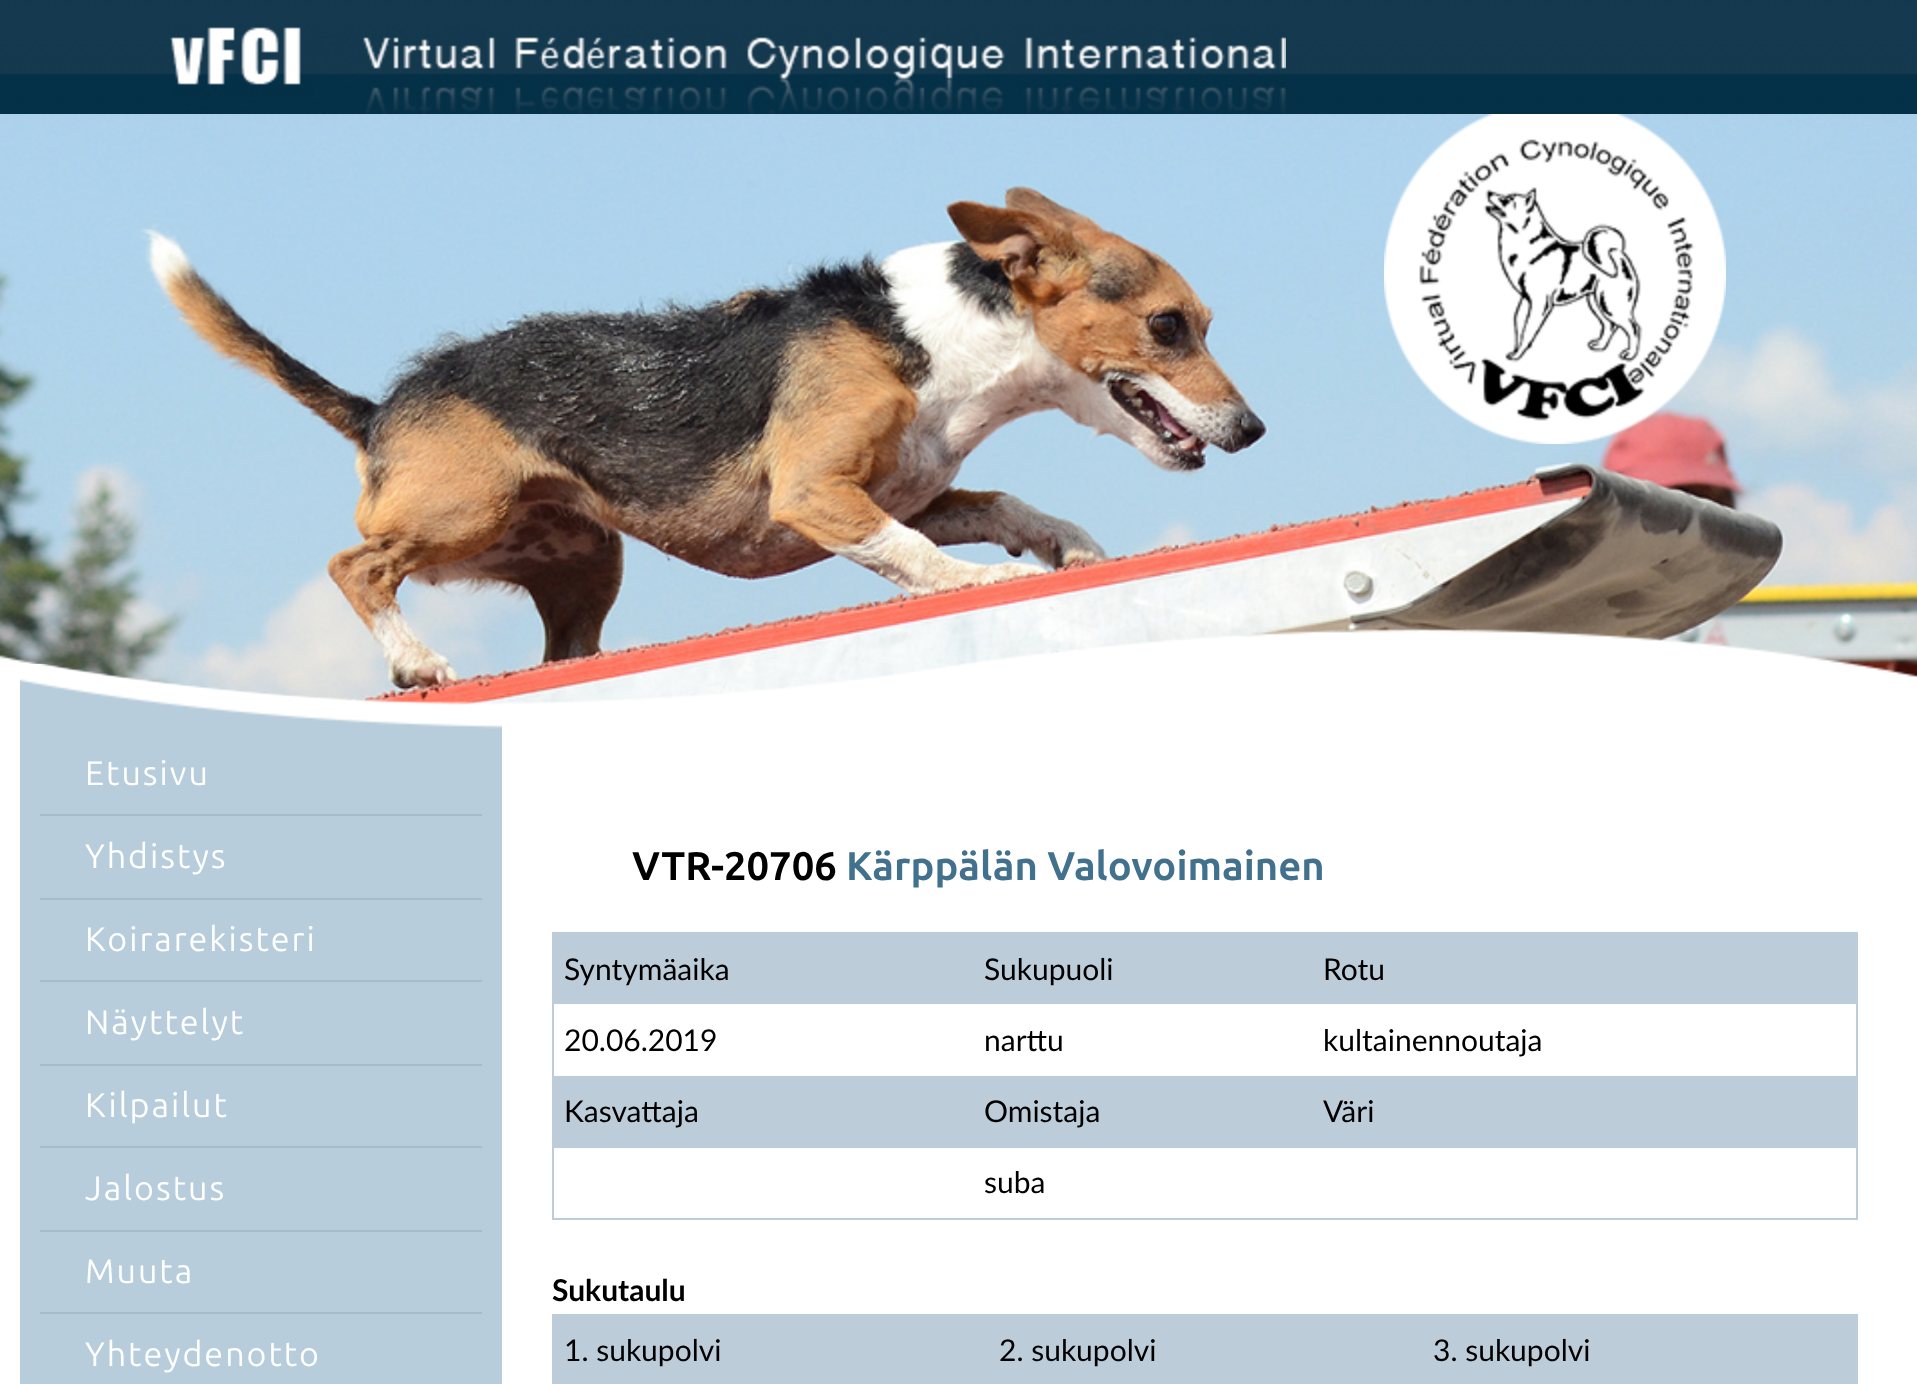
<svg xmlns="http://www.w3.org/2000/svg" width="1917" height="1384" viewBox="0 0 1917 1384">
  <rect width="100%" height="100%" fill="rgb(255,255,255)"/>
  <image x="0" y="0" width="1917" height="114" href="pic1.png"/>
  <image x="170" y="27" width="1116" height="87" href="pic2.png"/>
  <image x="0" y="114" width="1917" height="591" href="pic3.png"/>
  <image x="1384" y="114" width="342" height="330" href="pic4.png"/>
  <image x="0" y="629" width="1917" height="99" href="pic5.png"/>
  <image x="20" y="664" width="482" height="80" href="pic6.png"/>
  <rect x="20" y="744" width="482" height="640" fill="rgb(184,205,219)"/>
  <text x="85" y="785" font-family="Ubuntu" font-size="34" letter-spacing="2" fill="rgb(255,255,255)">Etusivu</text>
  <rect x="40" y="814" width="442" height="2" fill="rgb(167,187,205)"/>
  <text x="85" y="868" font-family="Ubuntu" font-size="34" letter-spacing="2" fill="rgb(255,255,255)">Yhdistys</text>
  <rect x="40" y="898" width="442" height="2" fill="rgb(167,187,205)"/>
  <text x="85" y="951" font-family="Ubuntu" font-size="34" letter-spacing="2" fill="rgb(255,255,255)">Koirarekisteri</text>
  <rect x="40" y="980" width="442" height="2" fill="rgb(167,187,205)"/>
  <text x="85" y="1034" font-family="Ubuntu" font-size="34" letter-spacing="2" fill="rgb(255,255,255)">Näyttelyt</text>
  <rect x="40" y="1064" width="442" height="2" fill="rgb(167,187,205)"/>
  <text x="85" y="1117" font-family="Ubuntu" font-size="34" letter-spacing="2" fill="rgb(255,255,255)">Kilpailut</text>
  <rect x="40" y="1146" width="442" height="2" fill="rgb(167,187,205)"/>
  <text x="85" y="1200" font-family="Ubuntu" font-size="34" letter-spacing="2" fill="rgb(255,255,255)">Jalostus</text>
  <rect x="40" y="1230" width="442" height="2" fill="rgb(167,187,205)"/>
  <text x="85" y="1283" font-family="Ubuntu" font-size="34" letter-spacing="2" fill="rgb(255,255,255)">Muuta</text>
  <rect x="40" y="1312" width="442" height="2" fill="rgb(167,187,205)"/>
  <text x="85" y="1366" font-family="Ubuntu" font-size="34" letter-spacing="2" fill="rgb(255,255,255)">Yhteydenotto</text>
  <text x="632" y="880" font-family="Ubuntu" font-size="40" font-weight="bold" fill="rgb(0,0,0)">VTR-20706</text>
  <text x="846" y="880" font-family="Ubuntu" font-size="40" font-weight="bold" fill="rgb(66,113,142)">Kärppälän Valovoimainen</text>
  <rect x="553" y="933" width="1304" height="286" fill="none" stroke="rgb(189,204,217)" stroke-width="2"/>
  <rect x="554" y="934" width="1302" height="70" fill="rgb(189,204,217)"/>
  <g font-family="Lato" font-size="30" fill="rgb(0,0,0)">
    <text x="564" y="980">Syntymäaika</text>
    <text x="984" y="980">Sukupuoli</text>
    <text x="1323" y="980">Rotu</text>
    <text x="564" y="1051">20.06.2019</text>
    <text x="984" y="1051">narttu</text>
    <text x="1323" y="1051">kultainennoutaja</text>
  </g>
  <rect x="554" y="1076" width="1302" height="72" fill="rgb(189,204,217)"/>
  <g font-family="Lato" font-size="30" fill="rgb(0,0,0)">
    <text x="564" y="1122">Kasvattaja</text>
    <text x="984" y="1122">Omistaja</text>
    <text x="1323" y="1122">Väri</text>
    <text x="984" y="1193">suba</text>
  </g>
  <text x="552" y="1301" font-family="Lato" font-size="30" font-weight="bold" fill="rgb(0,0,0)">Sukutaulu</text>
  <rect x="552" y="1314" width="1306" height="2" fill="rgb(189,204,217)"/>
  <rect x="552" y="1314" width="2" height="70" fill="rgb(189,204,217)"/>
  <rect x="554" y="1316" width="1304" height="68" fill="rgb(189,204,217)"/>
  <g font-family="Lato" font-size="30" fill="rgb(0,0,0)">
    <text x="564" y="1361">1. sukupolvi</text>
    <text x="999" y="1361">2. sukupolvi</text>
    <text x="1433" y="1361">3. sukupolvi</text>
  </g>
</svg>
